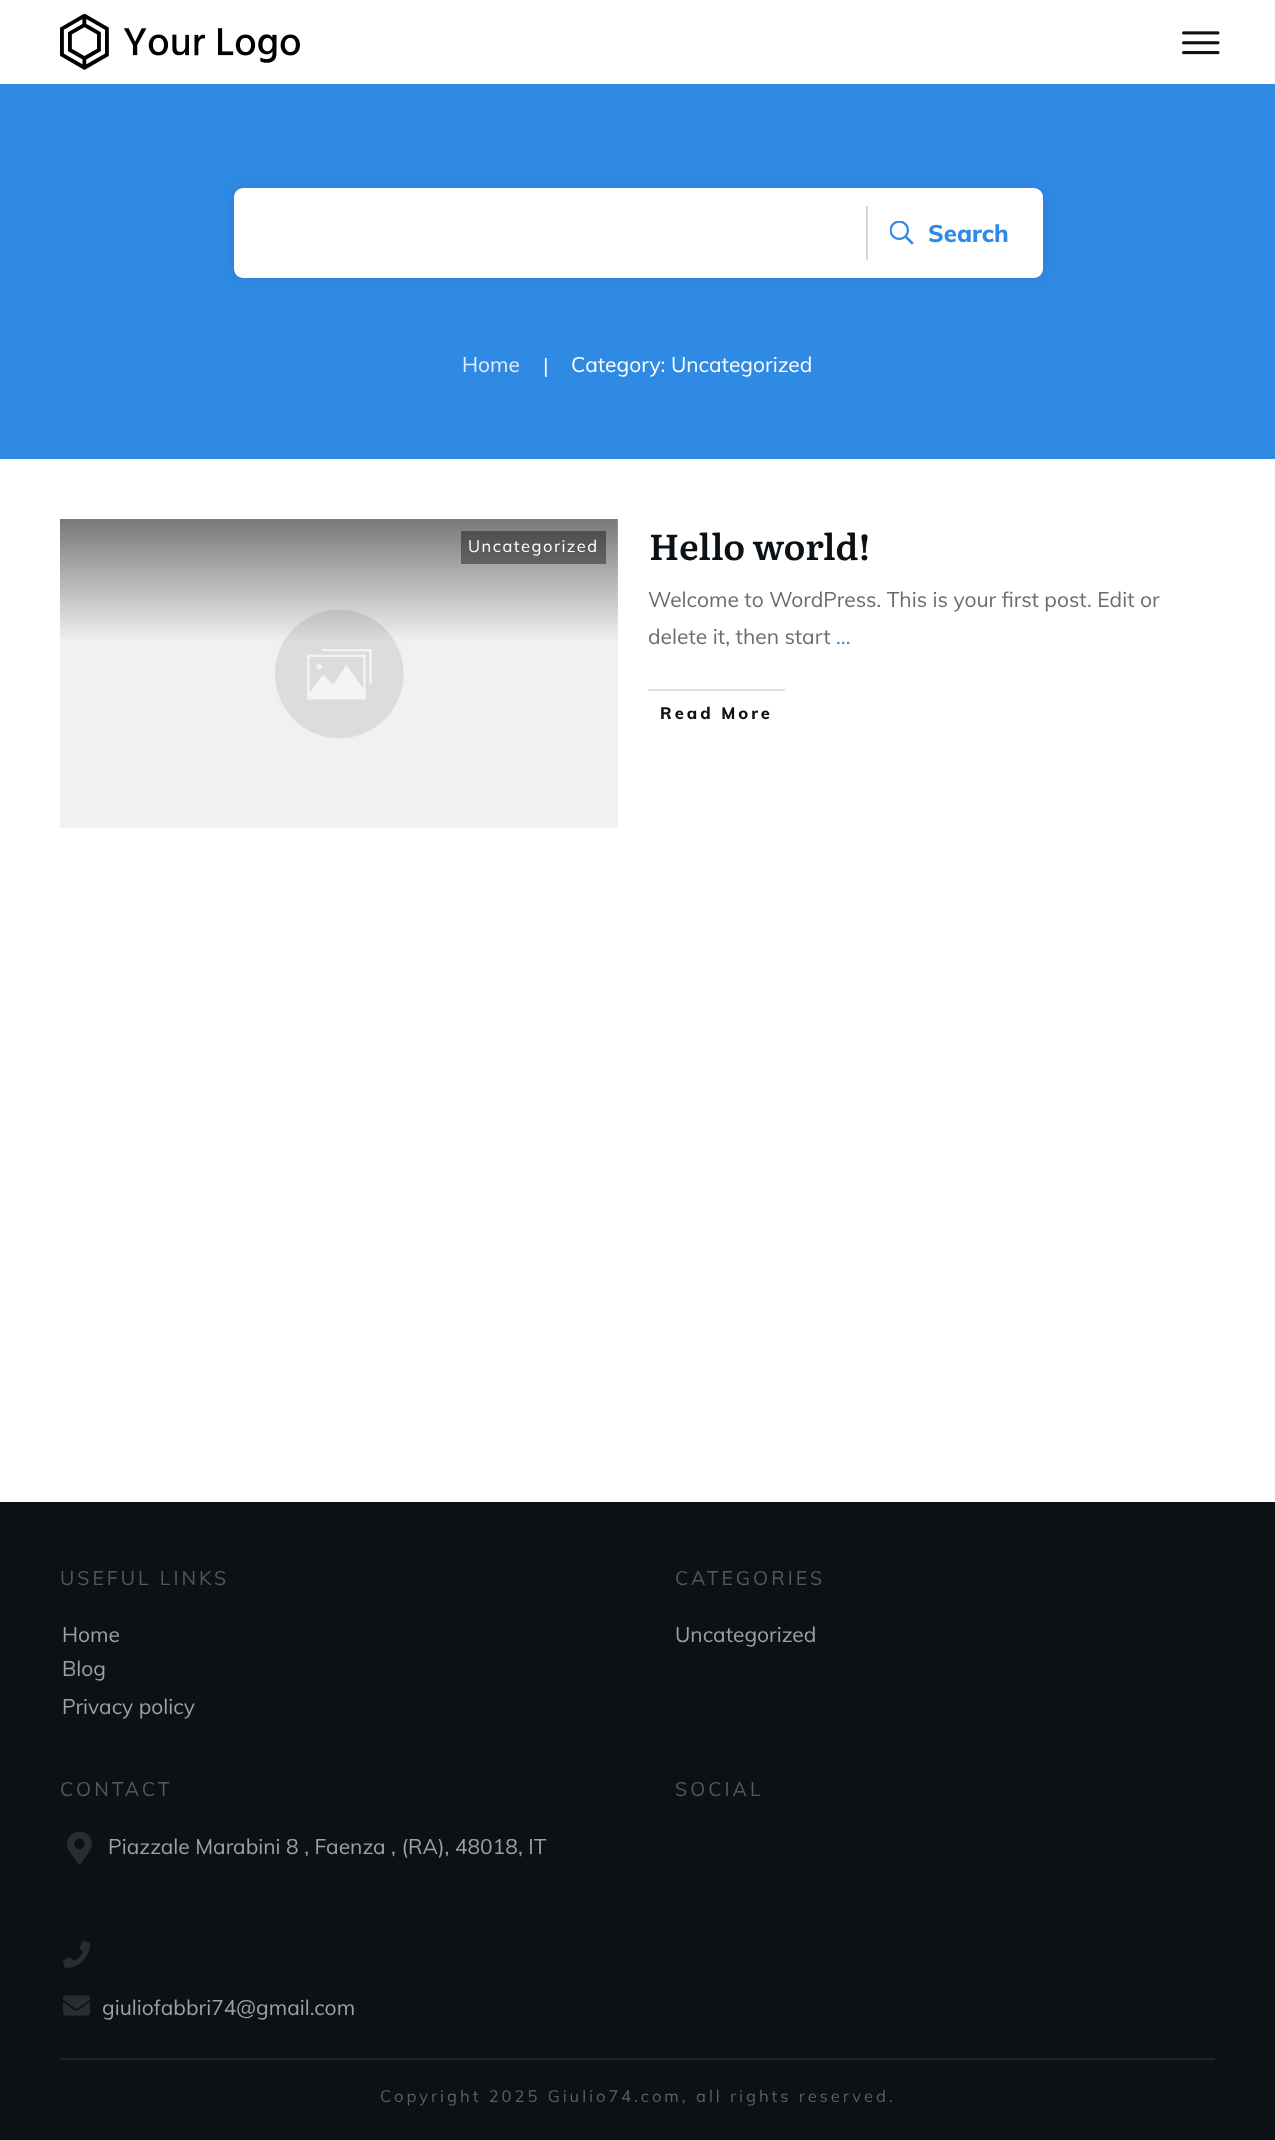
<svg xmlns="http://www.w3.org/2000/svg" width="1275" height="2140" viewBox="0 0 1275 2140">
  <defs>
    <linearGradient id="g1" gradientUnits="userSpaceOnUse" x1="677" y1="1868" x2="680" y2="1871"><stop offset="0.5" stop-color="rgb(18,20,22)"/><stop offset="0.5" stop-color="rgb(20,21,22)"/></linearGradient>
    <linearGradient id="g2" gradientUnits="userSpaceOnUse" x1="689" y1="1868" x2="692" y2="1871"><stop offset="0.5" stop-color="rgb(18,20,22)"/><stop offset="0.5" stop-color="rgb(20,21,22)"/></linearGradient>
    <linearGradient id="g3" gradientUnits="userSpaceOnUse" x1="701" y1="1868" x2="704" y2="1871"><stop offset="0.5" stop-color="rgb(18,20,22)"/><stop offset="0.5" stop-color="rgb(20,21,22)"/></linearGradient>
    <linearGradient id="g4" gradientUnits="userSpaceOnUse" x1="714" y1="1868" x2="717" y2="1871"><stop offset="0.5" stop-color="rgb(18,20,22)"/><stop offset="0.5" stop-color="rgb(20,21,22)"/></linearGradient>
  </defs>
  <rect width="100%" height="100%" fill="rgb(255,255,255)"/>
  <image x="60" y="14" width="240" height="56" href="pic1.png"/>
  <image x="1182" y="31" width="38" height="24" href="pic2.png"/>
  <rect x="0" y="84" width="1275" height="375" fill="rgb(47,138,228)"/>
  <rect x="234" y="188" width="809" height="90" rx="9" fill="rgba(0,0,0,0.08)" filter="blur(8px)"/>
  <rect x="234" y="188" width="809" height="90" rx="9" fill="rgb(255,255,255)"/>
  <rect x="866" y="206" width="2" height="54" fill="rgb(214,214,214)"/>
  <image x="890" y="221" width="24" height="24" href="pic3.png"/>
  <text x="928" y="242" font-family="Muli" font-size="24" font-weight="800" fill="rgb(47,138,228)">Search</text>
  <text x="462" y="372" font-family="Muli" font-size="21" fill="rgb(224,237,251)">Home</text>
  <g font-family="Muli" font-size="21" fill="rgb(255,255,255)">
    <text x="543" y="373">|</text>
    <text x="571" y="372">Category: Uncategorized</text>
  </g>
  <image x="60" y="519" width="558" height="309" href="pic4.png"/>
  <rect x="461" y="531" width="145" height="33" fill="rgba(0,0,0,0.4)"/>
  <text x="468" y="552" font-family="Muli" font-size="16.5" letter-spacing="1.5" fill="rgb(255,255,255)">Uncategorized</text>
  <text x="649" y="560" font-family="Literata" font-size="36" font-weight="600" fill="rgb(12,17,21)">Hello world!</text>
  <g font-family="Muli" font-size="21" fill="rgb(106,107,108)">
    <text>
      <tspan x="648" y="607">Welcome to WordPress. This is your first post. Edit or</tspan>
      <tspan x="648" y="644">delete it, then start</tspan>
    </text>
  </g>
  <text x="836" y="644" font-family="Muli" font-size="21" fill="rgb(47,138,228)">...</text>
  <rect x="648" y="689" width="137" height="2" fill="rgb(224,224,224)"/>
  <text x="660" y="719" font-family="Muli" font-size="16.5" font-weight="800" letter-spacing="3" fill="rgb(12,17,21)">Read More</text>
  <rect x="0" y="1502" width="1275" height="638" fill="rgb(12,17,21)"/>
  <rect x="60" y="2058" width="1155" height="2" fill="rgb(31,36,40)"/>
  <text x="60" y="1585" font-family="Muli" font-size="19.5" letter-spacing="3" fill="rgb(85,88,91)">USEFUL LINKS</text>
  <g font-family="Muli" font-size="21" fill="rgb(158,160,161)">
    <text>
      <tspan x="62" y="1642">Home</tspan>
      <tspan x="62" y="1676">Blog</tspan>
      <tspan x="62" y="1714">Privacy policy</tspan>
    </text>
  </g>
  <text x="675" y="1585" font-family="Muli" font-size="19.5" letter-spacing="3" fill="rgb(85,88,91)">CATEGORIES</text>
  <text x="675" y="1642" font-family="Muli" font-size="21" fill="rgb(158,160,161)">Uncategorized</text>
  <text x="60" y="1796" font-family="Muli" font-size="19.5" letter-spacing="3" fill="rgb(85,88,91)">CONTACT</text>
  <image x="67" y="1832" width="25" height="33" href="pic5.png"/>
  <text x="108" y="1854" font-family="Muli" font-size="21" fill="rgb(158,160,161)">Piazzale Marabini 8 , Faenza , (RA), 48018, IT</text>
  <image x="63" y="1941" width="27" height="27" href="pic6.png"/>
  <image x="63" y="1995" width="27" height="21" href="pic7.png"/>
  <text x="102" y="2015" font-family="Muli" font-size="21" fill="rgb(158,160,161)">giuliofabbri74@gmail.com</text>
  <text x="675" y="1796" font-family="Muli" font-size="19.5" letter-spacing="3" fill="rgb(85,88,91)">SOCIAL</text>
  <circle cx="678.5" cy="1869.5" r="1.5" fill="url(#g1)"/>
  <circle cx="690.5" cy="1869.5" r="1.5" fill="url(#g2)"/>
  <circle cx="702.5" cy="1869.5" r="1.5" fill="url(#g3)"/>
  <circle cx="715.5" cy="1869.5" r="1.5" fill="url(#g4)"/>
  <text x="380" y="2102" font-family="Muli" font-size="16.5" letter-spacing="3" fill="rgb(92,96,98)">Copyright 2025 Giulio74.com, all rights reserved.</text>
</svg>
